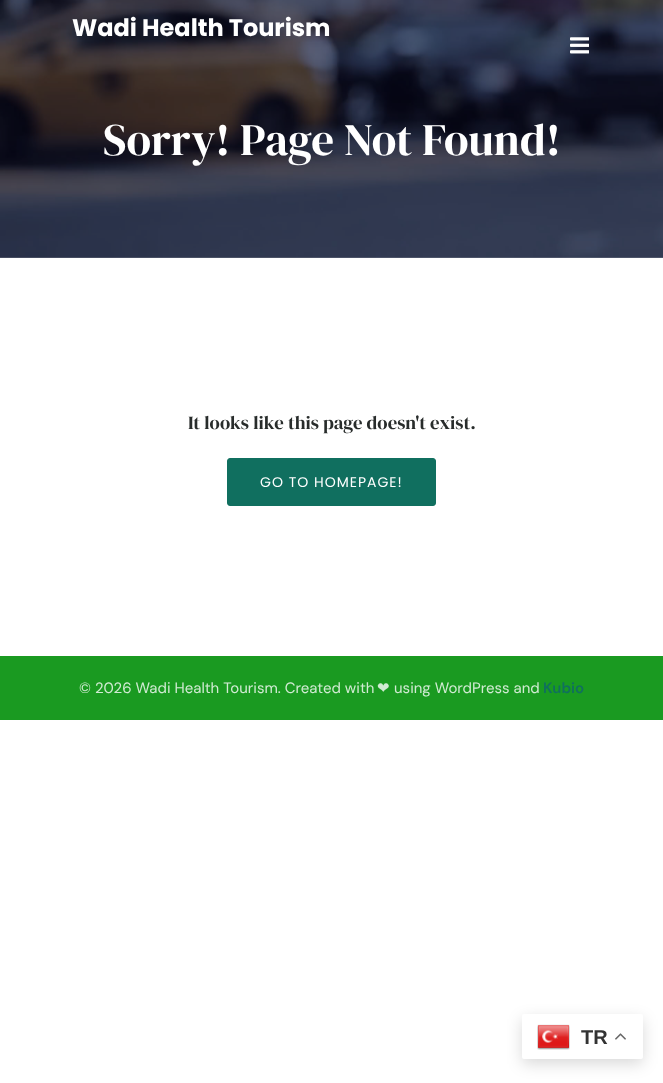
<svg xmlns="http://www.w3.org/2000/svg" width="663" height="1083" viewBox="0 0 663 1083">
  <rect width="100%" height="100%" fill="rgb(255,255,255)"/>
  <image x="0" y="0" width="663" height="258" href="pic2.png"/>
  <text x="72" y="36" font-family="Poppins" font-size="24" font-weight="bold" fill="rgb(255,255,255)">Wadi Health Tourism</text>
  <image x="570" y="37" width="19" height="17" href="pic1.png"/>
  <text x="103" y="155" font-family="DM Serif Display" font-size="45" fill="rgb(255,255,255)">Sorry! Page Not Found!</text>
  <text x="188" y="429" font-family="DM Serif Display" font-size="18.75" fill="rgb(40,44,43)">It looks like this page doesn't exist.</text>
  <rect x="227.5" y="458.5" width="208" height="47" rx="2.5" fill="rgb(16,111,95)" stroke="rgb(16,111,95)"/>
  <text x="260" y="487" font-family="Poppins" font-size="14" letter-spacing="1" fill="rgb(255,255,255)">GO TO HOMEPAGE!</text>
  <rect x="0" y="656" width="663" height="64" fill="rgb(26,154,33)"/>
  <text x="79" y="693" font-family="DM Sans" font-size="15" fill="rgb(209,235,211)">© 2026 Wadi Health Tourism. Created with</text>
  <text x="377" y="693" font-family="DejaVu Sans" font-size="15" fill="rgb(209,235,211)">❤</text>
  <text x="394" y="693" font-family="DM Sans" font-size="15" fill="rgb(209,235,211)">using WordPress and</text>
  <text x="543" y="693" font-family="DM Sans" font-size="15" font-weight="600" fill="rgb(16,111,95)">Kubio</text>
  <rect x="522" y="1019" width="121" height="45" rx="2" fill="rgba(0,0,0,0.15)" filter="blur(7.5px)"/>
  <rect x="522" y="1014" width="121" height="45" rx="2" fill="rgb(255,255,255)"/>
  <image x="537" y="1024" width="33" height="26" href="pic3.png"/>
  <text x="581" y="1044" font-family="Liberation Sans" font-size="20" font-weight="bold" fill="rgb(51,51,51)">TR</text>
  <image x="615" y="1033" width="11" height="7" href="pic4.png"/>
</svg>
